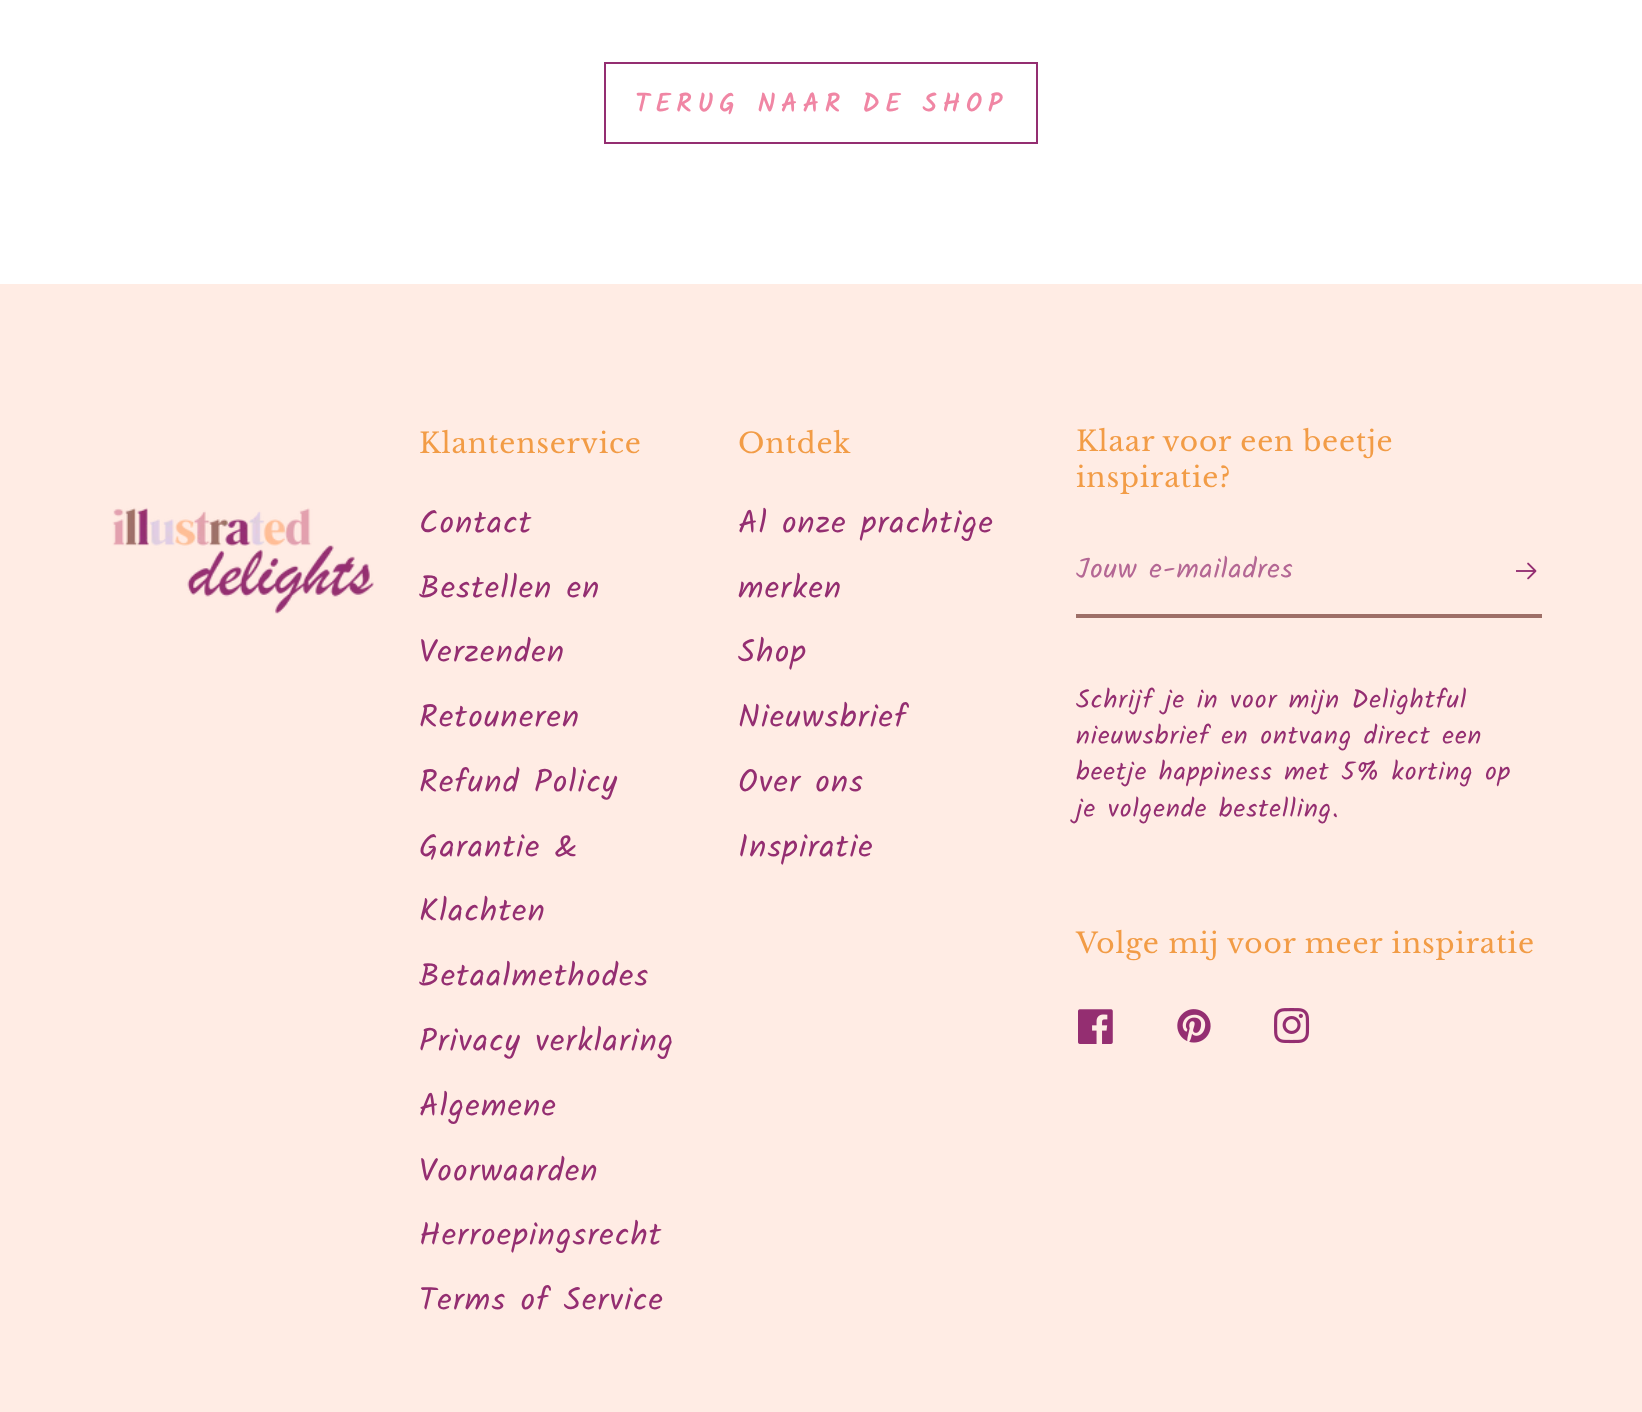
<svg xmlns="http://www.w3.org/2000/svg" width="1642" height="1412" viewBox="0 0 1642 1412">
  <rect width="100%" height="100%" fill="rgb(255,255,255)"/>
  <rect x="605" y="63" width="432" height="80" fill="none" stroke="rgb(148,46,113)" stroke-width="2"/>
  <text x="635" y="112" font-family="Kalam" font-size="26" font-weight="bold" letter-spacing="6" fill="rgb(240,134,164)">TERUG NAAR DE SHOP</text>
  <rect x="0" y="284" width="1642" height="1128" fill="rgb(255,236,228)"/>
  <image x="112" y="507" width="262" height="107" href="pic1.png"/>
  <text x="419" y="453" font-family="Libre Baskerville" font-size="28" letter-spacing="0.8" fill="rgb(242,156,70)">Klantenservice</text>
  <g font-family="Kalam" font-size="32" letter-spacing="1.25" fill="rgb(148,46,113)">
    <text x="419" y="533">Contact</text>
    <text x="419" y="598">Bestellen en</text>
    <text x="419" y="662">Verzenden</text>
    <text x="419" y="727">Retouneren</text>
    <text x="419" y="792">Refund Policy</text>
    <text x="419" y="857">Garantie &amp;</text>
    <text x="419" y="921">Klachten</text>
    <text x="419" y="986">Betaalmethodes</text>
    <text x="419" y="1051">Privacy verklaring</text>
    <text x="419" y="1116">Algemene</text>
    <text x="419" y="1181">Voorwaarden</text>
    <text x="419" y="1245">Herroepingsrecht</text>
    <text x="419" y="1310">Terms of Service</text>
  </g>
  <text x="738" y="453" font-family="Libre Baskerville" font-size="28" letter-spacing="0.8" fill="rgb(242,156,70)">Ontdek</text>
  <g font-family="Kalam" font-size="32" letter-spacing="1.25" fill="rgb(148,46,113)">
    <text x="738" y="533">Al onze prachtige</text>
    <text x="738" y="598">merken</text>
    <text x="738" y="662">Shop</text>
    <text x="738" y="727">Nieuwsbrief</text>
    <text x="738" y="792">Over ons</text>
    <text x="738" y="857">Inspiratie</text>
  </g>
  <g font-family="Libre Baskerville" font-size="28" letter-spacing="0.8" fill="rgb(242,156,70)">
    <text>
      <tspan x="1076" y="451">Klaar voor een beetje</tspan>
      <tspan x="1076" y="487">inspiratie?</tspan>
    </text>
  </g>
  <rect x="1076" y="614" width="466" height="4" fill="rgb(158,111,103)"/>
  <text x="1076" y="578" font-family="Kalam" font-size="28" letter-spacing="0.8" fill="rgb(180,103,148)">Jouw e-mailadres</text>
  <image x="1516" y="562" width="21" height="18" href="pic2.png"/>
  <g font-family="Kalam" font-size="26" letter-spacing="1" fill="rgb(148,46,113)">
    <text>
      <tspan x="1076" y="708">Schrijf je in voor mijn Delightful</tspan>
      <tspan x="1076" y="744">nieuwsbrief en ontvang direct een</tspan>
      <tspan x="1076" y="780">beetje happiness met 5% korting op</tspan>
      <tspan x="1076" y="817">je volgende bestelling.</tspan>
    </text>
  </g>
  <text x="1076" y="953" font-family="Libre Baskerville" font-size="28" letter-spacing="0.8" fill="rgb(242,156,70)">Volge mij voor meer inspiratie</text>
  <image x="1078" y="1009" width="35" height="35" href="pic3.png"/>
  <image x="1177" y="1009" width="34" height="34" href="pic4.png"/>
  <image x="1274" y="1008" width="36" height="36" href="pic5.png"/>
</svg>
